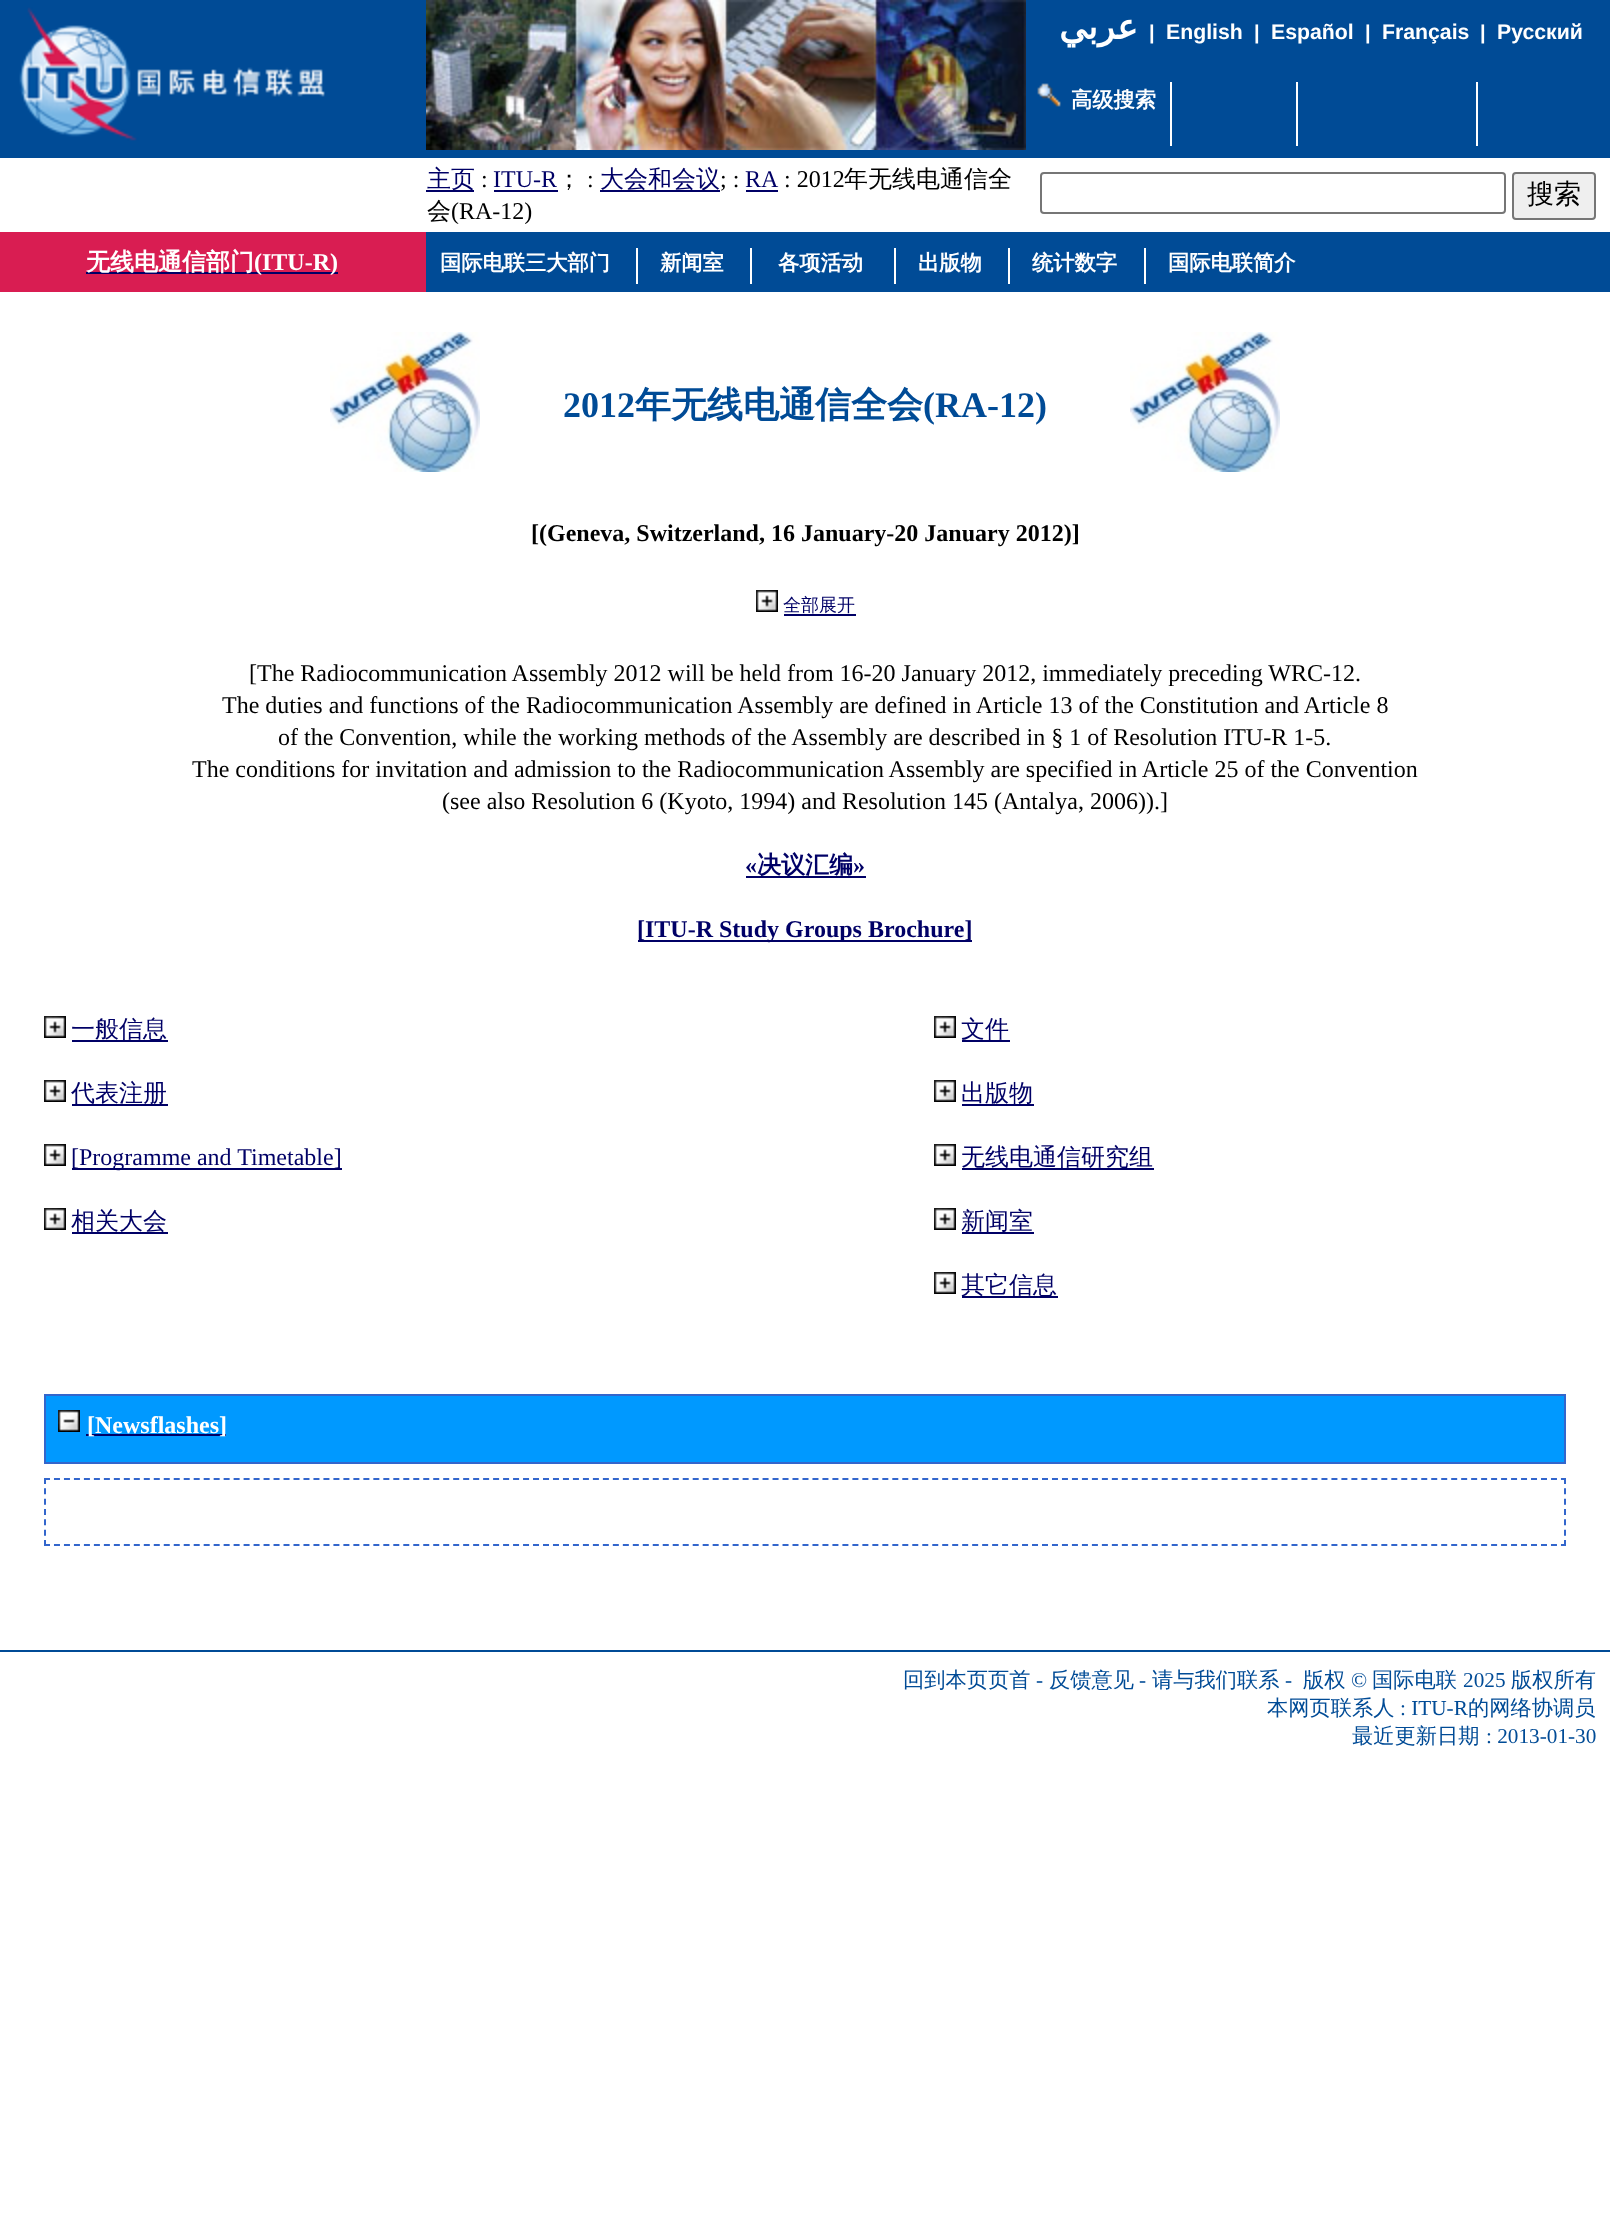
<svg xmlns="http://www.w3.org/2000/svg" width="1610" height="2225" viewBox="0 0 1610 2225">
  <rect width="100%" height="100%" fill="rgb(255,255,255)"/>
  <rect x="0" y="0" width="1610" height="158" fill="rgb(0,75,150)"/>
  <image x="19" y="7" width="306" height="134" href="pic1.png"/>
  <image x="426" y="0" width="600" height="150" href="pic2.png"/>
  <text x="1138" y="39" font-family="DejaVu Sans" font-size="35" font-weight="bold" direction="rtl" fill="rgb(255,255,255)">عربي</text>
  <text x="1149" y="39" font-family="Liberation Sans" font-size="20" font-weight="bold" fill="rgb(255,255,255)">|</text>
  <text x="1166" y="39" font-family="Liberation Sans" font-size="21.25" font-weight="bold" fill="rgb(255,255,255)">English</text>
  <text x="1254" y="39" font-family="Liberation Sans" font-size="20" font-weight="bold" fill="rgb(255,255,255)">|</text>
  <text x="1271" y="39" font-family="Liberation Sans" font-size="21.25" font-weight="bold" fill="rgb(255,255,255)">Español</text>
  <text x="1365" y="39" font-family="Liberation Sans" font-size="20" font-weight="bold" fill="rgb(255,255,255)">|</text>
  <text x="1382" y="39" font-family="Liberation Sans" font-size="21.25" font-weight="bold" fill="rgb(255,255,255)">Français</text>
  <text x="1480" y="39" font-family="Liberation Sans" font-size="20" font-weight="bold" fill="rgb(255,255,255)">|</text>
  <text x="1497" y="39" font-family="Liberation Sans" font-size="21.25" font-weight="bold" fill="rgb(255,255,255)">Русский</text>
  <rect x="1170" y="82" width="2" height="64" fill="rgb(255,255,255)"/>
  <image x="1037" y="83" width="24" height="24" href="pic3.png"/>
  <text x="1071" y="107" font-family="WenQuanYi Zen Hei" font-size="21.25" font-weight="bold" fill="rgb(255,255,255)">高级搜索</text>
  <rect x="1296" y="82" width="2" height="64" fill="rgb(255,255,255)"/>
  <rect x="1476" y="82" width="2" height="64" fill="rgb(255,255,255)"/>
  <rect x="426" y="190" width="48" height="2" fill="rgb(0,0,102)"/>
  <text x="427" y="187" font-family="WenQuanYi Zen Hei" font-size="24" font-weight="500" fill="rgb(0,0,102)">主页</text>
  <text x="481" y="187" font-family="Liberation Serif" font-size="24" fill="rgb(0,0,0)">:</text>
  <text x="493" y="187" font-family="Liberation Serif" font-size="24" fill="rgb(0,0,102)">ITU-R</text>
  <rect x="494" y="190" width="64" height="2" fill="rgb(0,0,102)"/>
  <text x="557" y="187" font-family="WenQuanYi Zen Hei" font-size="24" font-weight="500" fill="rgb(0,0,0)">；</text>
  <text x="587" y="187" font-family="Liberation Serif" font-size="24" fill="rgb(0,0,0)">:</text>
  <rect x="600" y="190" width="120" height="2" fill="rgb(0,0,102)"/>
  <text x="600" y="187" font-family="WenQuanYi Zen Hei" font-size="24" font-weight="500" fill="rgb(0,0,102)">大会和会议</text>
  <text x="720" y="187" font-family="Liberation Serif" font-size="24" fill="rgb(0,0,0)">; :</text>
  <text x="745" y="187" font-family="Liberation Serif" font-size="24" fill="rgb(0,0,102)">RA</text>
  <rect x="746" y="190" width="32" height="2" fill="rgb(0,0,102)"/>
  <text x="784" y="187" font-family="Liberation Serif" font-size="24" fill="rgb(0,0,0)">: 2012</text>
  <g font-family="WenQuanYi Zen Hei" font-size="24" font-weight="500" fill="rgb(0,0,0)">
    <text x="844" y="187">年无线电通信全</text>
    <text x="427" y="219">会</text>
  </g>
  <text x="451" y="219" font-family="Liberation Serif" font-size="24" fill="rgb(0,0,0)">(RA-12)</text>
  <rect x="1041" y="173" width="464" height="40" rx="3" fill="none" stroke="rgb(118,118,118)" stroke-width="2"/>
  <rect x="1513" y="173" width="82" height="46" rx="3" fill="rgb(239,239,239)" stroke="rgb(118,118,118)" stroke-width="2"/>
  <text x="1527" y="203" font-family="WenQuanYi Zen Hei" font-size="27" font-weight="500" fill="rgb(0,0,0)">搜索</text>
  <rect x="0" y="232" width="426" height="60" fill="rgb(217,29,82)"/>
  <rect x="86" y="272" width="252" height="2" fill="rgb(0,0,102)"/>
  <text x="86" y="270" font-family="WenQuanYi Zen Hei" font-size="24" font-weight="bold" fill="rgb(255,255,255)">无线电通信部门</text>
  <text x="254" y="270" font-family="Liberation Serif" font-size="24" font-weight="bold" fill="rgb(255,255,255)">(ITU-R)</text>
  <rect x="426" y="232" width="1184" height="60" fill="rgb(0,75,150)"/>
  <rect x="0" y="1650" width="1610" height="2" fill="rgb(0,75,150)"/>
  <image x="330" y="332" width="150" height="140" href="pic4.png"/>
  <text x="563" y="417" font-family="Liberation Serif" font-size="36" font-weight="bold" fill="rgb(0,75,150)">2012</text>
  <text x="635" y="417" font-family="WenQuanYi Zen Hei" font-size="36" font-weight="bold" fill="rgb(0,75,150)">年无线电通信全会</text>
  <text x="923" y="417" font-family="Liberation Serif" font-size="36" font-weight="bold" fill="rgb(0,75,150)">(RA-12)</text>
  <image x="1130" y="332" width="150" height="140" href="pic4.png"/>
  <text x="531" y="541" font-family="Liberation Serif" font-size="24" font-weight="bold" fill="rgb(0,0,0)">[(Geneva, Switzerland, 16 January-20 January 2012)]</text>
  <image x="756" y="590" width="22" height="22" href="pic5.png"/>
  <text x="783" y="611" font-family="WenQuanYi Zen Hei" font-size="18" font-weight="500" fill="rgb(0,0,102)">全部展开</text>
  <rect x="784" y="614" width="72" height="2" fill="rgb(0,0,102)"/>
  <g font-family="Liberation Serif" font-size="24" fill="rgb(0,0,0)">
    <text x="249" y="681">[The Radiocommunication Assembly 2012 will be held from 16-20 January 2012, immediately preceding WRC-12.</text>
    <text x="222" y="713">The duties and functions of the Radiocommunication Assembly are defined in Article 13 of the Constitution and Article 8</text>
    <text x="278" y="745">of the Convention, while the working methods of the Assembly are described in § 1 of Resolution ITU-R 1-5.</text>
    <text x="192" y="777">The conditions for invitation and admission to the Radiocommunication Assembly are specified in Article 25 of the Convention</text>
    <text x="442" y="809">(see also Resolution 6 (Kyoto, 1994) and Resolution 145 (Antalya, 2006)).]</text>
  </g>
  <text x="745" y="873" font-family="Liberation Serif" font-size="24" font-weight="bold" fill="rgb(0,0,102)">«</text>
  <rect x="746" y="876" width="120" height="2" fill="rgb(0,0,102)"/>
  <text x="757" y="873" font-family="WenQuanYi Zen Hei" font-size="24" font-weight="bold" fill="rgb(0,0,102)">决议汇编</text>
  <text x="853" y="873" font-family="Liberation Serif" font-size="24" font-weight="bold" fill="rgb(0,0,102)">»</text>
  <rect x="638" y="940" width="334" height="2" fill="rgb(0,0,102)"/>
  <text x="637" y="937" font-family="Liberation Serif" font-size="24" font-weight="bold" fill="rgb(0,0,102)">[ITU-R Study Groups Brochure]</text>
  <image x="44" y="1016" width="22" height="22" href="pic5.png"/>
  <rect x="72" y="1040" width="96" height="2" fill="rgb(0,0,102)"/>
  <text x="71" y="1037" font-family="WenQuanYi Zen Hei" font-size="24" font-weight="500" fill="rgb(0,0,102)">一般信息</text>
  <image x="44" y="1080" width="22" height="22" href="pic5.png"/>
  <rect x="72" y="1104" width="96" height="2" fill="rgb(0,0,102)"/>
  <text x="71" y="1101" font-family="WenQuanYi Zen Hei" font-size="24" font-weight="500" fill="rgb(0,0,102)">代表注册</text>
  <image x="44" y="1144" width="22" height="22" href="pic5.png"/>
  <rect x="72" y="1168" width="270" height="2" fill="rgb(0,0,102)"/>
  <text x="71" y="1165" font-family="Liberation Serif" font-size="24" fill="rgb(0,0,102)">[Programme and Timetable]</text>
  <image x="44" y="1208" width="22" height="22" href="pic5.png"/>
  <rect x="72" y="1232" width="96" height="2" fill="rgb(0,0,102)"/>
  <text x="71" y="1229" font-family="WenQuanYi Zen Hei" font-size="24" font-weight="500" fill="rgb(0,0,102)">相关大会</text>
  <image x="934" y="1016" width="22" height="22" href="pic5.png"/>
  <rect x="962" y="1040" width="48" height="2" fill="rgb(0,0,102)"/>
  <text x="961" y="1037" font-family="WenQuanYi Zen Hei" font-size="24" font-weight="500" fill="rgb(0,0,102)">文件</text>
  <image x="934" y="1080" width="22" height="22" href="pic5.png"/>
  <rect x="962" y="1104" width="72" height="2" fill="rgb(0,0,102)"/>
  <text x="961" y="1101" font-family="WenQuanYi Zen Hei" font-size="24" font-weight="500" fill="rgb(0,0,102)">出版物</text>
  <image x="934" y="1144" width="22" height="22" href="pic5.png"/>
  <rect x="962" y="1168" width="192" height="2" fill="rgb(0,0,102)"/>
  <text x="961" y="1165" font-family="WenQuanYi Zen Hei" font-size="24" font-weight="500" fill="rgb(0,0,102)">无线电通信研究组</text>
  <image x="934" y="1208" width="22" height="22" href="pic5.png"/>
  <rect x="962" y="1232" width="72" height="2" fill="rgb(0,0,102)"/>
  <text x="961" y="1229" font-family="WenQuanYi Zen Hei" font-size="24" font-weight="500" fill="rgb(0,0,102)">新闻室</text>
  <image x="934" y="1272" width="22" height="22" href="pic5.png"/>
  <rect x="962" y="1296" width="96" height="2" fill="rgb(0,0,102)"/>
  <text x="961" y="1293" font-family="WenQuanYi Zen Hei" font-size="24" font-weight="500" fill="rgb(0,0,102)">其它信息</text>
  <rect x="45" y="1395" width="1520" height="68" fill="rgb(0,153,255)" stroke="rgb(51,102,204)" stroke-width="2"/>
  <image x="58" y="1410" width="22" height="22" href="pic6.png"/>
  <rect x="86" y="1434" width="140" height="2" fill="rgb(0,0,102)"/>
  <text x="87" y="1433" font-family="Liberation Serif" font-size="24" font-weight="bold" fill="rgb(255,255,255)">[Newsflashes]</text>
  <path d="M44 1479H1566" fill="none" stroke="rgb(51,102,204)" stroke-width="2" stroke-dasharray="6 3.98"/>
  <path d="M1565 1478V1546" fill="none" stroke="rgb(51,102,204)" stroke-width="2" stroke-dasharray="6 4.34"/>
  <path d="M44 1545H1566" fill="none" stroke="rgb(51,102,204)" stroke-width="2" stroke-dasharray="6 3.98"/>
  <path d="M45 1478V1546" fill="none" stroke="rgb(51,102,204)" stroke-width="2" stroke-dasharray="6 4.34"/>
  <text x="903" y="1687" font-family="WenQuanYi Zen Hei" font-size="21.25" font-weight="500" fill="rgb(0,75,150)">回到本页页首</text>
  <text x="1036" y="1687" font-family="Liberation Serif" font-size="21.25" fill="rgb(0,75,150)">-</text>
  <text x="1049" y="1687" font-family="WenQuanYi Zen Hei" font-size="21.25" font-weight="500" fill="rgb(0,75,150)">反馈意见</text>
  <text x="1139" y="1687" font-family="Liberation Serif" font-size="21.25" fill="rgb(0,75,150)">-</text>
  <text x="1152" y="1687" font-family="WenQuanYi Zen Hei" font-size="21.25" font-weight="500" fill="rgb(0,75,150)">请与我们联系</text>
  <text x="1285" y="1687" font-family="Liberation Serif" font-size="21.25" fill="rgb(0,75,150)">-</text>
  <text x="1303" y="1687" font-family="WenQuanYi Zen Hei" font-size="21.25" font-weight="500" fill="rgb(0,75,150)">版权</text>
  <text x="1351" y="1687" font-family="Liberation Serif" font-size="21.25" fill="rgb(0,75,150)">©</text>
  <text x="1372" y="1687" font-family="WenQuanYi Zen Hei" font-size="21.25" font-weight="500" fill="rgb(0,75,150)">国际电联</text>
  <text x="1463" y="1687" font-family="Liberation Serif" font-size="21.25" fill="rgb(0,75,150)">2025</text>
  <g font-family="WenQuanYi Zen Hei" font-size="21.25" font-weight="500" fill="rgb(0,75,150)">
    <text x="1511" y="1687">版权所有</text>
    <text x="1267" y="1715">本网页联系人</text>
  </g>
  <text x="1400" y="1715" font-family="Liberation Serif" font-size="21.25" fill="rgb(0,75,150)">: ITU-R</text>
  <g font-family="WenQuanYi Zen Hei" font-size="21.25" font-weight="500" fill="rgb(0,75,150)">
    <text x="1468" y="1715">的网络协调员</text>
    <text x="1352" y="1743">最近更新日期</text>
  </g>
  <text x="1486" y="1743" font-family="Liberation Serif" font-size="21.25" fill="rgb(0,75,150)">: 2013-01-30</text>
  <text x="440" y="270" font-family="WenQuanYi Zen Hei" font-size="21.25" font-weight="bold" fill="rgb(255,255,255)">国际电联三大部门</text>
  <rect x="636" y="248" width="2" height="36" fill="rgb(255,255,255)"/>
  <text x="660" y="270" font-family="WenQuanYi Zen Hei" font-size="21.25" font-weight="bold" fill="rgb(255,255,255)">新闻室</text>
  <rect x="750" y="248" width="2" height="36" fill="rgb(255,255,255)"/>
  <text x="778" y="270" font-family="WenQuanYi Zen Hei" font-size="21.25" font-weight="bold" fill="rgb(255,255,255)">各项活动</text>
  <rect x="894" y="248" width="2" height="36" fill="rgb(255,255,255)"/>
  <text x="918" y="270" font-family="WenQuanYi Zen Hei" font-size="21.25" font-weight="bold" fill="rgb(255,255,255)">出版物</text>
  <rect x="1008" y="248" width="2" height="36" fill="rgb(255,255,255)"/>
  <text x="1032" y="270" font-family="WenQuanYi Zen Hei" font-size="21.25" font-weight="bold" fill="rgb(255,255,255)">统计数字</text>
  <rect x="1144" y="248" width="2" height="36" fill="rgb(255,255,255)"/>
  <text x="1168" y="270" font-family="WenQuanYi Zen Hei" font-size="21.25" font-weight="bold" fill="rgb(255,255,255)">国际电联简介</text>
</svg>
